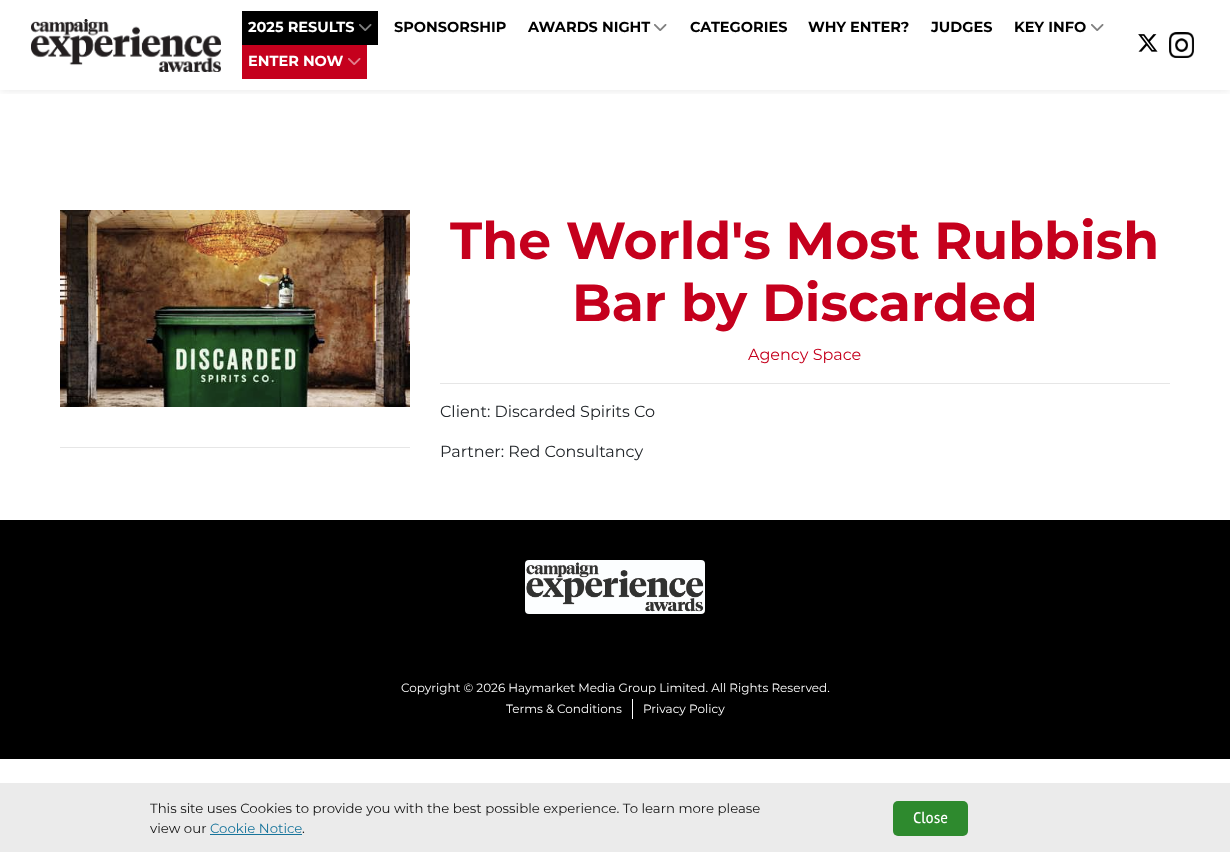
<svg xmlns="http://www.w3.org/2000/svg" width="1230" height="852" viewBox="0 0 1230 852">
  <defs>
    <clipPath id="clip1"><rect x="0" y="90" width="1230" height="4"/></clipPath>
  </defs>
  <rect width="100%" height="100%" fill="rgb(255,255,255)"/>
  <g clip-path="url(#clip1)">
    <rect x="0" y="0" width="1230" height="90" fill="rgba(0,0,0,0.1)" filter="blur(5px)"/>
  </g>
  <image x="31" y="19" width="190" height="53" href="pic1.png"/>
  <rect x="242" y="11" width="136" height="34" fill="rgb(0,0,0)"/>
  <text x="248" y="32" font-family="Montserrat" font-size="14.5" font-weight="bold" fill="rgb(255,255,255)">2025 RESULTS</text>
  <image x="359" y="24" width="13" height="7" href="pic2.png"/>
  <g font-family="Montserrat" font-size="14.5" font-weight="bold" fill="rgb(0,0,0)">
    <text x="394" y="32">SPONSORSHIP</text>
    <text x="528" y="32">AWARDS NIGHT</text>
  </g>
  <image x="654" y="24" width="13" height="7" href="pic3.png"/>
  <g font-family="Montserrat" font-size="14.5" font-weight="bold" fill="rgb(0,0,0)">
    <text x="690" y="32">CATEGORIES</text>
    <text x="808" y="32">WHY ENTER?</text>
    <text x="931" y="32">JUDGES</text>
    <text x="1014" y="32">KEY INFO</text>
  </g>
  <image x="1091" y="24" width="13" height="7" href="pic3.png"/>
  <rect x="242" y="45" width="125" height="34" fill="rgb(197,0,29)"/>
  <text x="248" y="66" font-family="Montserrat" font-size="14.5" font-weight="bold" fill="rgb(255,255,255)">ENTER NOW</text>
  <image x="348" y="58" width="13" height="7" href="pic4.png"/>
  <image x="1138" y="34" width="20" height="18" href="pic5.png"/>
  <image x="1169" y="32" width="25" height="26" href="pic6.png"/>
  <image x="60" y="210" width="350" height="197" href="pic7.png"/>
  <rect x="60" y="447" width="350" height="1" fill="rgb(230,230,230)"/>
  <g font-family="Montserrat" font-size="52" font-weight="bold" fill="rgb(197,0,29)">
    <text x="450" y="259">The World's Most Rubbish</text>
    <text x="572" y="321">Bar by Discarded</text>
  </g>
  <text x="748" y="360" font-family="Montserrat" font-size="16" fill="rgb(197,0,29)">Agency Space</text>
  <rect x="440" y="383" width="730" height="1" fill="rgb(230,230,230)"/>
  <g font-family="Montserrat" font-size="16" fill="rgb(33,37,41)">
    <text x="440" y="417">Client: Discarded Spirits Co</text>
    <text x="440" y="457">Partner: Red Consultancy</text>
  </g>
  <rect x="0" y="520" width="1230" height="239" fill="rgb(0,0,0)"/>
  <image x="525" y="560" width="180" height="54" href="pic8.png"/>
  <g font-family="Montserrat" font-size="12" fill="rgb(255,255,255)">
    <text x="401" y="692">Copyright © 2026 Haymarket Media Group Limited. All Rights Reserved.</text>
    <text x="506" y="713">Terms &amp; Conditions</text>
  </g>
  <rect x="632" y="699" width="1" height="20" fill="rgb(255,255,255)"/>
  <text x="643" y="713" font-family="Montserrat" font-size="12" fill="rgb(255,255,255)">Privacy Policy</text>
  <rect x="0" y="783" width="1230" height="69" fill="rgb(235,235,235)"/>
  <g font-family="Montserrat" font-size="13.3" fill="rgb(18,18,18)">
    <text>
      <tspan x="150" y="813">This site uses Cookies to provide you with the best possible experience. To learn more please</tspan>
      <tspan x="150" y="833">view our</tspan>
    </text>
  </g>
  <text x="210" y="833" font-family="Montserrat" font-size="13.3" fill="rgb(23,116,155)">Cookie Notice</text>
  <rect x="210" y="834" width="92" height="1" fill="rgb(23,116,155)"/>
  <text x="302" y="833" font-family="Montserrat" font-size="13.3" fill="rgb(18,18,18)">.</text>
  <rect x="893" y="801" width="75" height="35" rx="5" fill="rgb(46,138,46)"/>
  <text x="913" y="823" font-family="Rambla" font-size="16" fill="rgb(255,255,255)">Close</text>
</svg>
